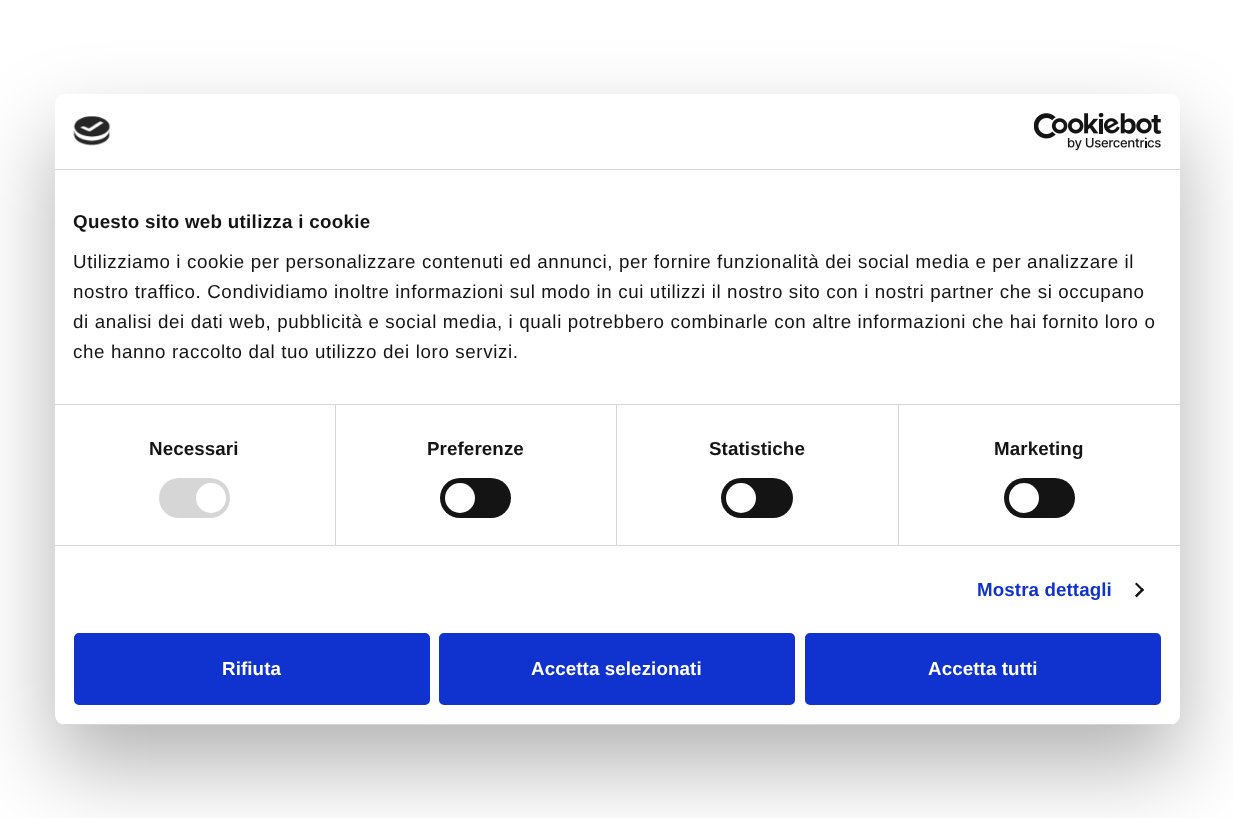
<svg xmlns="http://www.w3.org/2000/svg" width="1233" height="818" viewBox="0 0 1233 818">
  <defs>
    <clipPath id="clip1"><rect x="55" y="94" width="1125" height="631" rx="10"/></clipPath>
  </defs>
  <rect width="100%" height="100%" fill="rgb(255,255,255)"/>
  <rect x="55" y="134" width="1125" height="631" rx="10" fill="rgba(0,0,0,0.3)" filter="blur(42.5px)"/>
  <rect x="55" y="94" width="1125" height="631" rx="10" fill="rgb(255,255,255)"/>
  <rect x="55" y="169" width="1125" height="1" fill="rgb(214,214,214)"/>
  <image x="73" y="116" width="38" height="30" href="pic1.png"/>
  <image x="1034" y="113" width="127" height="37" href="pic2.png"/>
  <rect x="55" y="404" width="1125" height="1" fill="rgb(214,214,214)"/>
  <text x="73" y="228" font-family="Liberation Sans" font-size="18.75" font-weight="bold" letter-spacing="0.3" fill="rgb(20,20,20)">Questo sito web utilizza i cookie</text>
  <g font-family="Liberation Sans" font-size="18.75" letter-spacing="0.62" fill="rgb(20,20,20)">
    <text>
      <tspan x="73" y="268">Utilizziamo i cookie per personalizzare contenuti ed annunci, per fornire funzionalità dei social media e per analizzare il</tspan>
      <tspan x="73" y="298">nostro traffico. Condividiamo inoltre informazioni sul modo in cui utilizzi il nostro sito con i nostri partner che si occupano</tspan>
      <tspan x="73" y="328">di analisi dei dati web, pubblicità e social media, i quali potrebbero combinarle con altre informazioni che hai fornito loro o</tspan>
      <tspan x="73" y="358">che hanno raccolto dal tuo utilizzo dei loro servizi.</tspan>
    </text>
  </g>
  <rect x="55" y="545" width="1125" height="1" fill="rgb(214,214,214)"/>
  <rect x="335" y="405" width="1" height="140" fill="rgb(214,214,214)"/>
  <text x="149" y="455" font-family="Liberation Sans" font-size="18.75" font-weight="bold" letter-spacing="0.1" fill="rgb(20,20,20)">Necessari</text>
  <rect x="159" y="478" width="71" height="40" rx="20" fill="rgb(214,214,214)"/>
  <circle cx="211" cy="498" r="15" fill="rgb(255,255,255)"/>
  <rect x="616" y="405" width="1" height="140" fill="rgb(214,214,214)"/>
  <text x="427" y="455" font-family="Liberation Sans" font-size="18.75" font-weight="bold" letter-spacing="0.1" fill="rgb(20,20,20)">Preferenze</text>
  <rect x="440" y="478" width="71" height="40" rx="20" fill="rgb(20,20,20)"/>
  <circle cx="460" cy="498" r="15" fill="rgb(255,255,255)"/>
  <rect x="898" y="405" width="1" height="140" fill="rgb(214,214,214)"/>
  <text x="709" y="455" font-family="Liberation Sans" font-size="18.75" font-weight="bold" letter-spacing="0.1" fill="rgb(20,20,20)">Statistiche</text>
  <rect x="721" y="478" width="72" height="40" rx="20" fill="rgb(20,20,20)"/>
  <circle cx="741" cy="498" r="15" fill="rgb(255,255,255)"/>
  <text x="994" y="455" font-family="Liberation Sans" font-size="18.75" font-weight="bold" letter-spacing="0.1" fill="rgb(20,20,20)">Marketing</text>
  <rect x="1004" y="478" width="71" height="40" rx="20" fill="rgb(20,20,20)"/>
  <circle cx="1024" cy="498" r="15" fill="rgb(255,255,255)"/>
  <text x="977" y="596" font-family="Liberation Sans" font-size="18.75" font-weight="bold" letter-spacing="0.1" fill="rgb(16,50,207)">Mostra dettagli</text>
  <path d="M1136.5 582.5L1144 590L1142.5 591.5L1135 584Z" fill="rgb(20,20,20)"/>
  <path d="M1142.5 588L1144 590L1136.5 597.5L1135 595.5Z" fill="rgb(20,20,20)"/>
  <g clip-path="url(#clip1)">
    <rect x="55" y="724" width="1125" height="1" fill="rgb(214,214,214)"/>
  </g>
  <rect x="75.5" y="634.5" width="353" height="69" rx="3.5" fill="rgb(16,50,207)" stroke="rgb(16,50,207)" stroke-width="3"/>
  <text x="222" y="675" font-family="Liberation Sans" font-size="18.75" font-weight="bold" letter-spacing="0.1" fill="rgb(255,255,255)">Rifiuta</text>
  <rect x="440.5" y="634.5" width="353" height="69" rx="3.5" fill="rgb(16,50,207)" stroke="rgb(16,50,207)" stroke-width="3"/>
  <text x="531" y="675" font-family="Liberation Sans" font-size="18.75" font-weight="bold" letter-spacing="0.1" fill="rgb(255,255,255)">Accetta selezionati</text>
  <rect x="806.5" y="634.5" width="353" height="69" rx="3.5" fill="rgb(16,50,207)" stroke="rgb(16,50,207)" stroke-width="3"/>
  <text x="928" y="675" font-family="Liberation Sans" font-size="18.75" font-weight="bold" letter-spacing="0.1" fill="rgb(255,255,255)">Accetta tutti</text>
</svg>
